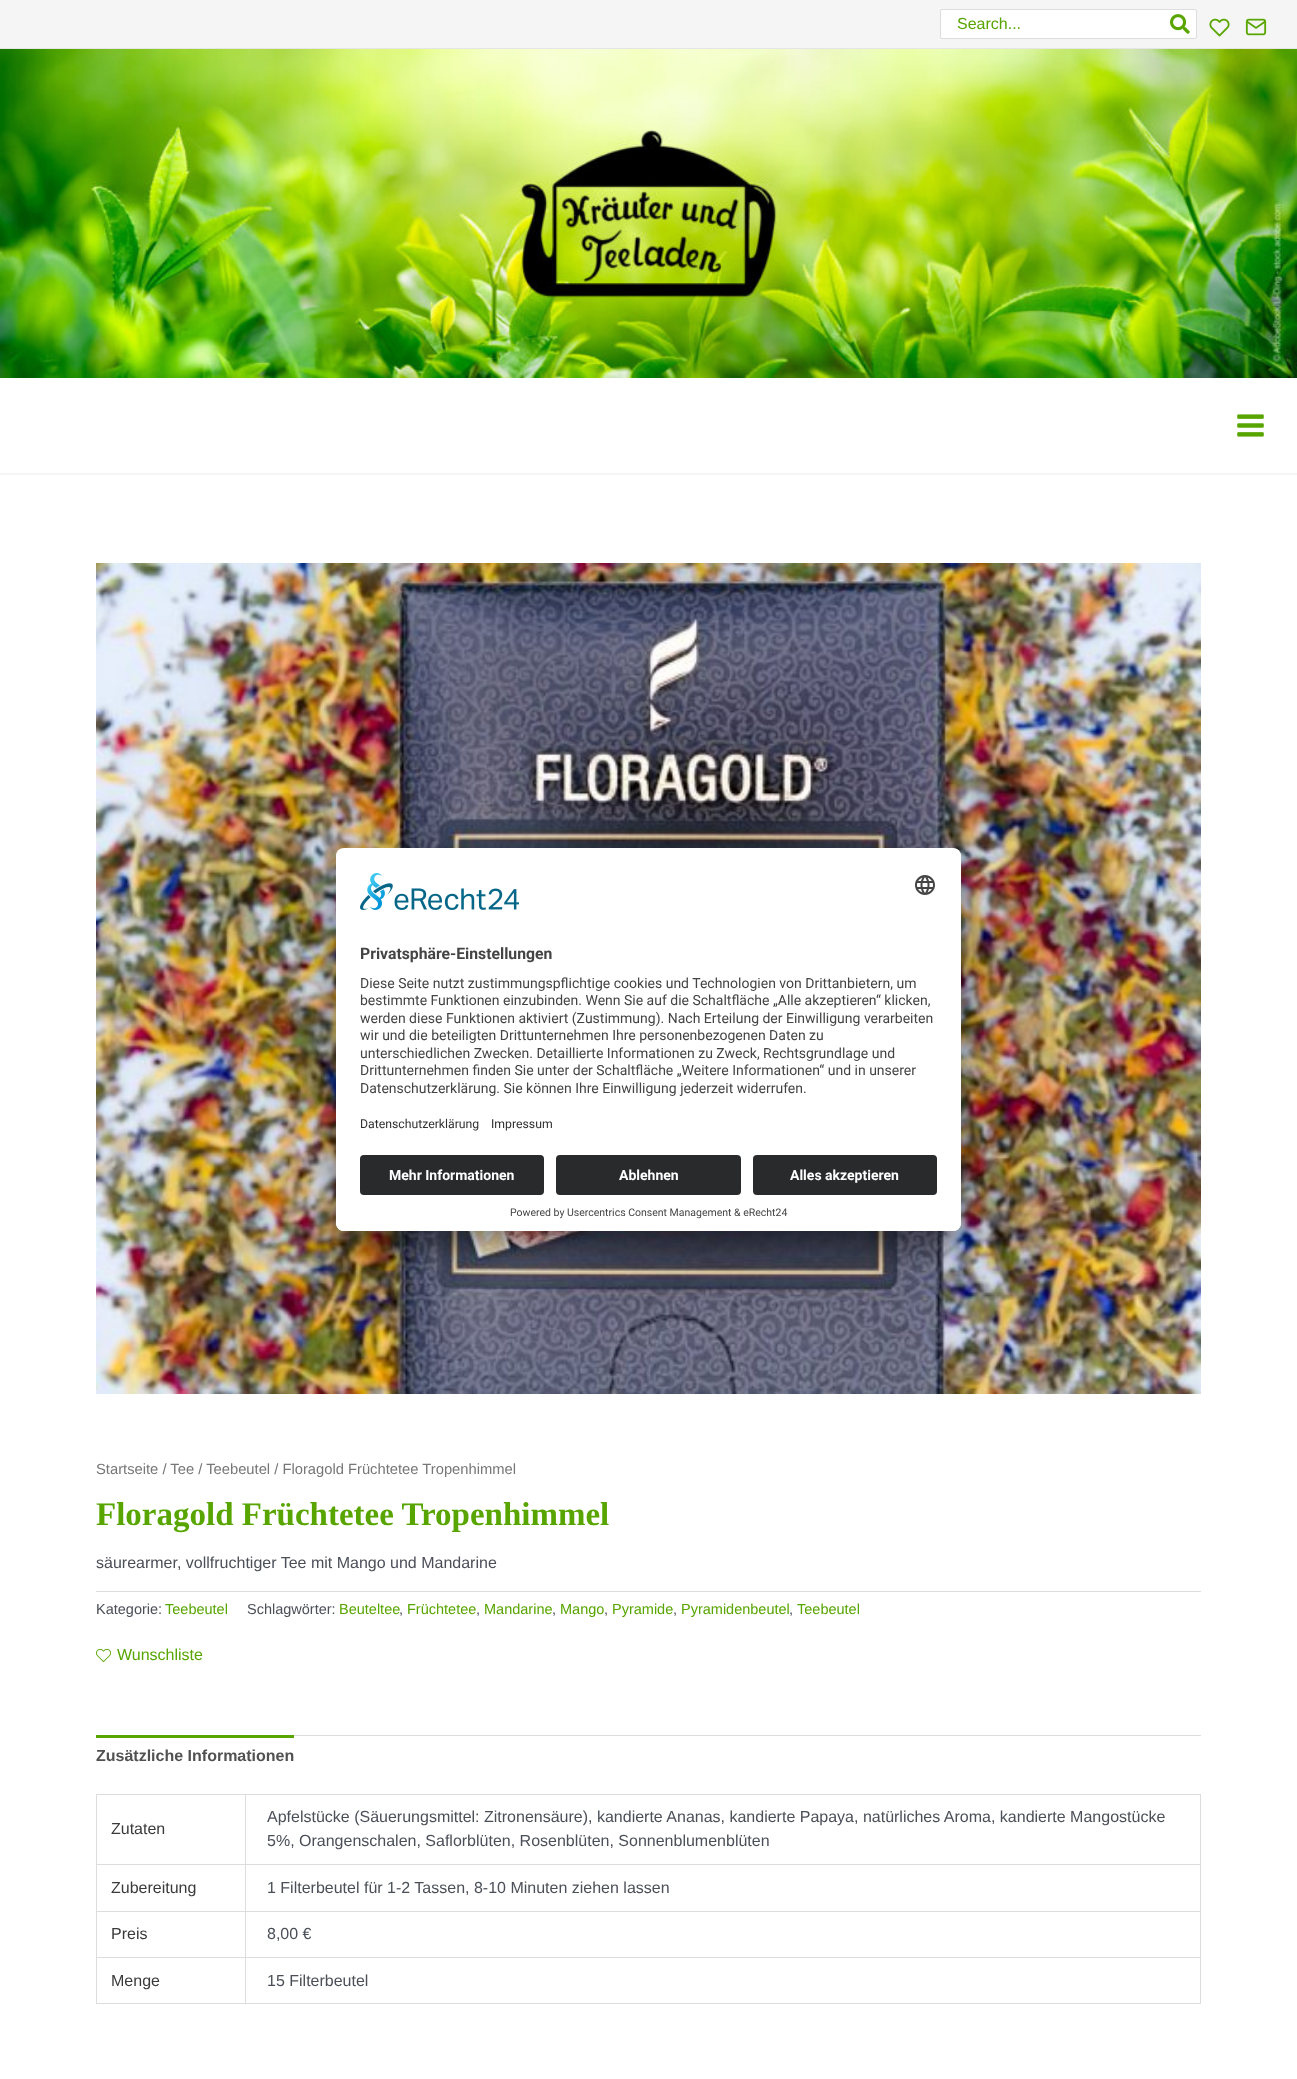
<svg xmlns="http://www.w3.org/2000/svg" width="1297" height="2079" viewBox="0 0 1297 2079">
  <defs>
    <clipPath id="clip1"><rect x="336" y="848" width="625" height="383" rx="8"/></clipPath>
    <clipPath id="clip2"><path d="M344 848H953C957.5 848 961 851.5 961 856V1147H336V856C336 851.5 339.5 848 344 848Z"/></clipPath>
  </defs>
  <rect width="100%" height="100%" fill="rgb(245,245,245)"/>
  <rect x="0" y="48" width="1297" height="1" fill="rgb(229,229,229)"/>
  <rect x="940.5" y="9.5" width="256" height="29" rx="1.5" fill="rgb(255,255,255)" stroke="rgb(221,221,221)"/>
  <text x="957" y="29" font-family="Liberation Sans" font-size="16" fill="rgb(88,165,0)">Search...</text>
  <image x="1170" y="14" width="20" height="20" href="pic1.png"/>
  <image x="1209" y="18" width="21" height="19" href="pic2.png"/>
  <image x="1245" y="18" width="22" height="18" href="pic3.png"/>
  <image x="0" y="49" width="1297" height="329" href="pic4.png"/>
  <rect x="0" y="378" width="1297" height="95" fill="rgb(255,255,255)"/>
  <image x="1237" y="414" width="27" height="23" href="pic5.png"/>
  <rect x="0" y="475" width="1297" height="1604" fill="rgb(255,255,255)"/>
  <image x="96" y="563" width="1105" height="831" href="pic6.png"/>
  <text x="96" y="1474" font-family="Liberation Sans" font-size="14.75" fill="rgb(119,119,119)">Startseite / Tee / Teebeutel / Floragold Früchtetee Tropenhimmel</text>
  <text x="96" y="1525" font-family="Liberation Serif" font-size="33" font-weight="bold" fill="rgb(88,165,0)">Floragold Früchtetee Tropenhimmel</text>
  <text x="96" y="1568" font-family="Liberation Sans" font-size="16" fill="rgb(75,79,88)">säurearmer, vollfruchtiger Tee mit Mango und Mandarine</text>
  <rect x="96" y="1591" width="1105" height="1" fill="rgb(221,221,221)"/>
  <text x="96" y="1614" font-family="Liberation Sans" font-size="14.5" fill="rgb(75,79,88)">Kategorie:</text>
  <text x="165" y="1614" font-family="Liberation Sans" font-size="14.5" fill="rgb(88,165,0)">Teebeutel</text>
  <text x="247" y="1614" font-family="Liberation Sans" font-size="14.5" fill="rgb(75,79,88)">Schlagwörter:</text>
  <text x="339" y="1614" font-family="Liberation Sans" font-size="14.5" fill="rgb(88,165,0)">Beuteltee</text>
  <text x="399" y="1614" font-family="Liberation Sans" font-size="14.5" fill="rgb(75,79,88)">,</text>
  <text x="407" y="1614" font-family="Liberation Sans" font-size="14.5" fill="rgb(88,165,0)">Früchtetee</text>
  <text x="476" y="1614" font-family="Liberation Sans" font-size="14.5" fill="rgb(75,79,88)">,</text>
  <text x="484" y="1614" font-family="Liberation Sans" font-size="14.5" fill="rgb(88,165,0)">Mandarine</text>
  <text x="552" y="1614" font-family="Liberation Sans" font-size="14.5" fill="rgb(75,79,88)">,</text>
  <text x="560" y="1614" font-family="Liberation Sans" font-size="14.5" fill="rgb(88,165,0)">Mango</text>
  <text x="604" y="1614" font-family="Liberation Sans" font-size="14.5" fill="rgb(75,79,88)">,</text>
  <text x="612" y="1614" font-family="Liberation Sans" font-size="14.5" fill="rgb(88,165,0)">Pyramide</text>
  <text x="673" y="1614" font-family="Liberation Sans" font-size="14.5" fill="rgb(75,79,88)">,</text>
  <text x="681" y="1614" font-family="Liberation Sans" font-size="14.5" fill="rgb(88,165,0)">Pyramidenbeutel</text>
  <text x="789" y="1614" font-family="Liberation Sans" font-size="14.5" fill="rgb(75,79,88)">,</text>
  <text x="797" y="1614" font-family="Liberation Sans" font-size="14.5" fill="rgb(88,165,0)">Teebeutel</text>
  <image x="96" y="1648" width="15" height="14" href="pic7.png"/>
  <text x="117" y="1660" font-family="Liberation Sans" font-size="16" fill="rgb(88,165,0)">Wunschliste</text>
  <rect x="294" y="1735" width="907" height="1" fill="rgb(221,221,221)"/>
  <rect x="96" y="1735" width="198" height="3" fill="rgb(88,165,0)"/>
  <text x="96" y="1761" font-family="Liberation Sans" font-size="16" font-weight="bold" fill="rgb(81,81,81)">Zusätzliche Informationen</text>
  <rect x="96" y="1794" width="1105" height="1" fill="rgb(221,221,221)"/>
  <rect x="245" y="1795" width="1" height="209" fill="rgb(221,221,221)"/>
  <rect x="96" y="1864" width="150" height="1" fill="rgb(221,221,221)"/>
  <rect x="96" y="1795" width="1" height="70" fill="rgb(221,221,221)"/>
  <text x="111" y="1834" font-family="Liberation Sans" font-size="16" fill="rgb(58,58,58)">Zutaten</text>
  <rect x="1200" y="1795" width="1" height="209" fill="rgb(221,221,221)"/>
  <rect x="246" y="1864" width="955" height="1" fill="rgb(221,221,221)"/>
  <g font-family="Liberation Sans" font-size="16" fill="rgb(75,79,88)">
    <text>
      <tspan x="267" y="1822">Apfelstücke (Säuerungsmittel: Zitronensäure), kandierte Ananas, kandierte Papaya, natürliches Aroma, kandierte Mangostücke</tspan>
      <tspan x="267" y="1846">5%, Orangenschalen, Saflorblüten, Rosenblüten, Sonnenblumenblüten</tspan>
    </text>
  </g>
  <rect x="96" y="1911" width="1105" height="1" fill="rgb(221,221,221)"/>
  <rect x="96" y="1865" width="1" height="47" fill="rgb(221,221,221)"/>
  <text x="111" y="1893" font-family="Liberation Sans" font-size="16" fill="rgb(58,58,58)">Zubereitung</text>
  <text x="267" y="1893" font-family="Liberation Sans" font-size="16" fill="rgb(75,79,88)">1 Filterbeutel für 1-2 Tassen, 8-10 Minuten ziehen lassen</text>
  <rect x="96" y="1957" width="1105" height="1" fill="rgb(221,221,221)"/>
  <rect x="96" y="1912" width="1" height="46" fill="rgb(221,221,221)"/>
  <text x="111" y="1939" font-family="Liberation Sans" font-size="16" fill="rgb(58,58,58)">Preis</text>
  <text x="267" y="1939" font-family="Liberation Sans" font-size="16" fill="rgb(75,79,88)">8,00 €</text>
  <rect x="96" y="2003" width="1105" height="1" fill="rgb(221,221,221)"/>
  <rect x="96" y="1958" width="1" height="46" fill="rgb(221,221,221)"/>
  <text x="111" y="1986" font-family="Liberation Sans" font-size="16" fill="rgb(58,58,58)">Menge</text>
  <text x="267" y="1986" font-family="Liberation Sans" font-size="16" fill="rgb(75,79,88)">15 Filterbeutel</text>
  <rect x="336" y="868" width="625" height="383" rx="8" fill="rgba(0,0,0,0.3)" filter="blur(14px)"/>
  <rect x="336" y="853" width="625" height="383" rx="8" fill="rgba(0,0,0,0.22)" filter="blur(13px)"/>
  <rect x="336" y="848" width="625" height="383" rx="8" fill="rgb(255,255,255)"/>
  <g clip-path="url(#clip1)">
    <g clip-path="url(#clip2)">
      <rect x="336" y="849" width="625" height="298" fill="rgb(255,255,255)"/>
    </g>
  </g>
  <image x="360" y="873" width="160" height="37" href="pic8.png"/>
  <image x="915" y="875" width="20" height="20" href="pic9.png"/>
  <text x="360" y="959" font-family="Roboto" font-size="15.75" font-weight="bold" fill="rgb(68,68,68)">Privatsphäre-Einstellungen</text>
  <g font-family="Roboto" font-size="14" fill="rgb(68,68,68)">
    <text>
      <tspan x="360" y="988">Diese Seite nutzt zustimmungspflichtige cookies und Technologien von Drittanbietern, um</tspan>
      <tspan x="360" y="1005">bestimmte Funktionen einzubinden. Wenn Sie auf die Schaltfläche „Alle akzeptieren“ klicken,</tspan>
      <tspan x="360" y="1023">werden diese Funktionen aktiviert (Zustimmung). Nach Erteilung der Einwilligung verarbeiten</tspan>
      <tspan x="360" y="1040">wir und die beteiligten Drittunternehmen Ihre personenbezogenen Daten zu</tspan>
      <tspan x="360" y="1058">unterschiedlichen Zwecken. Detaillierte Informationen zu Zweck, Rechtsgrundlage und</tspan>
      <tspan x="360" y="1075">Drittunternehmen finden Sie unter der Schaltfläche „Weitere Informationen“ und in unserer</tspan>
      <tspan x="360" y="1093">Datenschutzerklärung. Sie können Ihre Einwilligung jederzeit widerrufen.</tspan>
    </text>
  </g>
  <g font-family="Roboto" font-size="12.25" fill="rgb(48,48,48)">
    <text x="360" y="1128">Datenschutzerklärung</text>
    <text x="491" y="1128">Impressum</text>
  </g>
  <path d="M336 1147H961V1223C961 1227.5 957.5 1231 953 1231H344C339.5 1231 336 1227.5 336 1223Z" fill="rgb(255,255,255)"/>
  <rect x="360" y="1155" width="184" height="40" rx="4" fill="rgb(41,42,43)"/>
  <text x="389" y="1180" font-family="Roboto" font-size="14" font-weight="bold" fill="rgb(255,255,255)">Mehr Informationen</text>
  <rect x="556" y="1155" width="185" height="40" rx="4" fill="rgb(41,42,43)"/>
  <text x="619" y="1180" font-family="Roboto" font-size="14" font-weight="bold" fill="rgb(255,255,255)">Ablehnen</text>
  <rect x="753" y="1155" width="184" height="40" rx="4" fill="rgb(41,42,43)"/>
  <text x="790" y="1180" font-family="Roboto" font-size="14" font-weight="bold" fill="rgb(255,255,255)">Alles akzeptieren</text>
  <text x="510" y="1216" font-family="Roboto" font-size="10.5" fill="rgb(68,68,68)">Powered by Usercentrics Consent Management &amp; eRecht24</text>
</svg>
